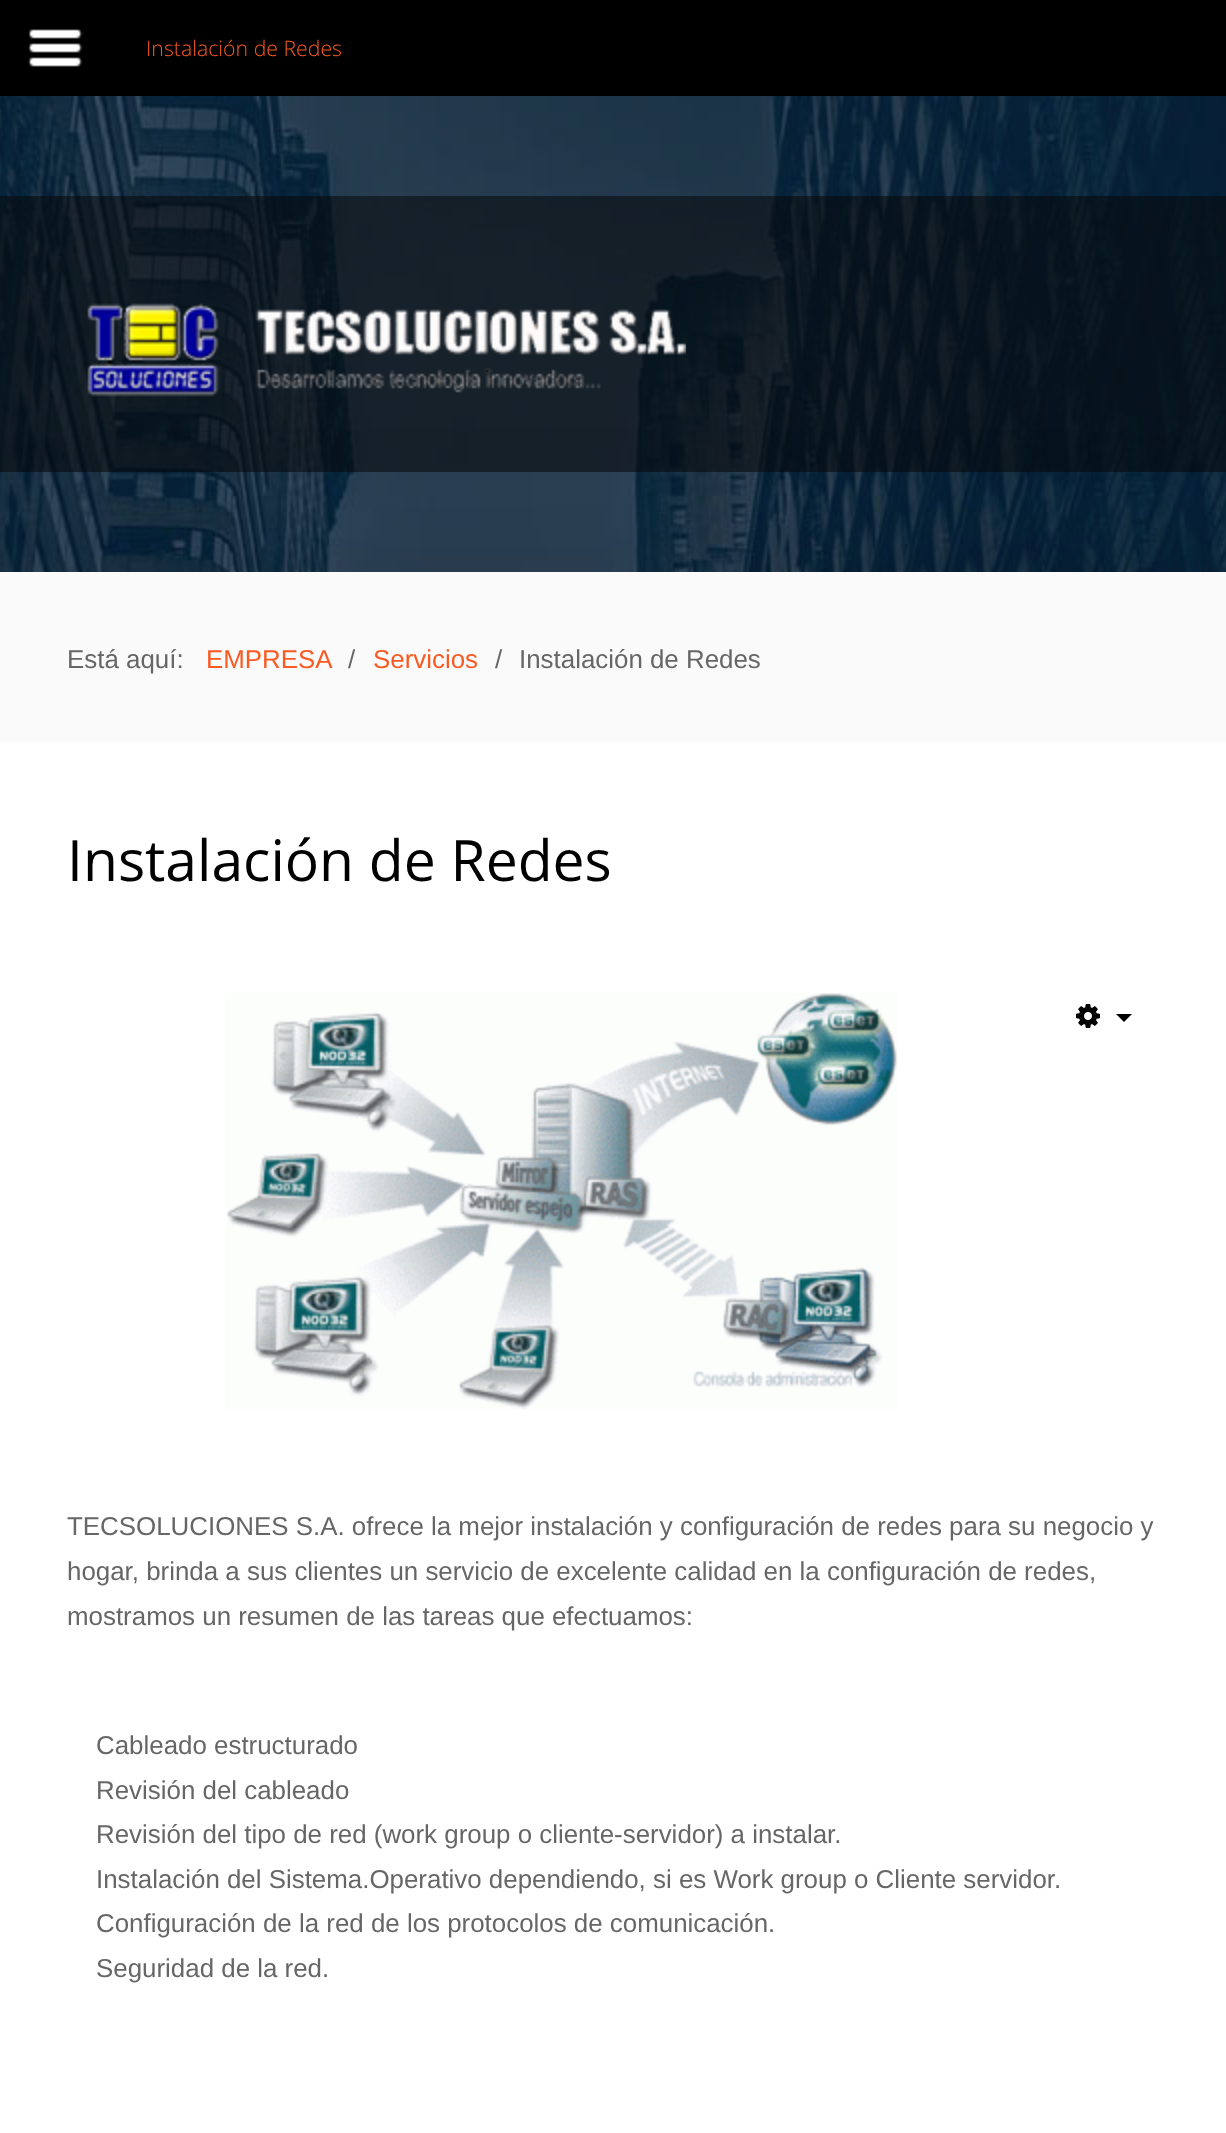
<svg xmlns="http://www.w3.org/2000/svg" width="1226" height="2133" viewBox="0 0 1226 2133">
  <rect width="100%" height="100%" fill="rgb(255,255,255)"/>
  <rect x="0" y="0" width="1226" height="96" fill="rgb(0,0,0)"/>
  <image x="28" y="29" width="55" height="38" href="pic1.png"/>
  <text x="146" y="56" font-family="Open Sans" font-size="21.25" font-weight="300" fill="rgb(250,90,34)">Instalación de Redes</text>
  <image x="0" y="96" width="1226" height="476" href="pic2.png"/>
  <rect x="0" y="196" width="1226" height="276" fill="rgba(7,7,7,0.54)"/>
  <rect x="0" y="572" width="1226" height="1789" fill="rgba(0,0,0,0.09)" filter="blur(76px)"/>
  <image x="87" y="303" width="599" height="94" href="pic3.png"/>
  <rect x="0" y="742" width="1226" height="1391" fill="rgb(255,255,255)"/>
  <rect x="0" y="572" width="1226" height="170" fill="rgb(250,250,250)"/>
  <text x="67" y="668" font-family="Liberation Sans" font-size="25.9" fill="rgb(102,102,102)">Está aquí:</text>
  <text x="206" y="668" font-family="Liberation Sans" font-size="25.9" fill="rgb(250,90,34)">EMPRESA</text>
  <text x="348" y="668" font-family="Liberation Sans" font-size="25.9" fill="rgb(102,102,102)">/</text>
  <text x="373" y="668" font-family="Liberation Sans" font-size="25.9" fill="rgb(250,90,34)">Servicios</text>
  <g font-family="Liberation Sans" font-size="25.9" fill="rgb(102,102,102)">
    <text x="495" y="668">/</text>
    <text x="519" y="668">Instalación de Redes</text>
  </g>
  <text x="67" y="881" font-family="Open Sans" font-size="57" fill="rgb(0,0,0)">Instalación de Redes</text>
  <image x="1076" y="1004" width="24" height="24" href="pic4.png"/>
  <path d="M1116 1014H1132L1124 1022Z" fill="rgb(0,0,0)"/>
  <image x="226" y="993" width="672" height="417" href="pic5.png"/>
  <g font-family="Liberation Sans" font-size="25.9" fill="rgb(102,102,102)">
    <text>
      <tspan x="67" y="1535">TECSOLUCIONES S.A. ofrece la mejor instalación y configuración de redes para su negocio y</tspan>
      <tspan x="67" y="1580">hogar, brinda a sus clientes un servicio de excelente calidad en la configuración de redes,</tspan>
      <tspan x="67" y="1625">mostramos un resumen de las tareas que efectuamos:</tspan>
    </text>
    <text>
      <tspan x="96" y="1754">Cableado estructurado</tspan>
      <tspan x="96" y="1799">Revisión del cableado</tspan>
      <tspan x="96" y="1843">Revisión del tipo de red (work group o cliente-servidor) a instalar.</tspan>
      <tspan x="96" y="1888">Instalación del Sistema.Operativo dependiendo, si es Work group o Cliente servidor.</tspan>
      <tspan x="96" y="1932">Configuración de la red de los protocolos de comunicación.</tspan>
      <tspan x="96" y="1977">Seguridad de la red.</tspan>
    </text>
  </g>
</svg>
